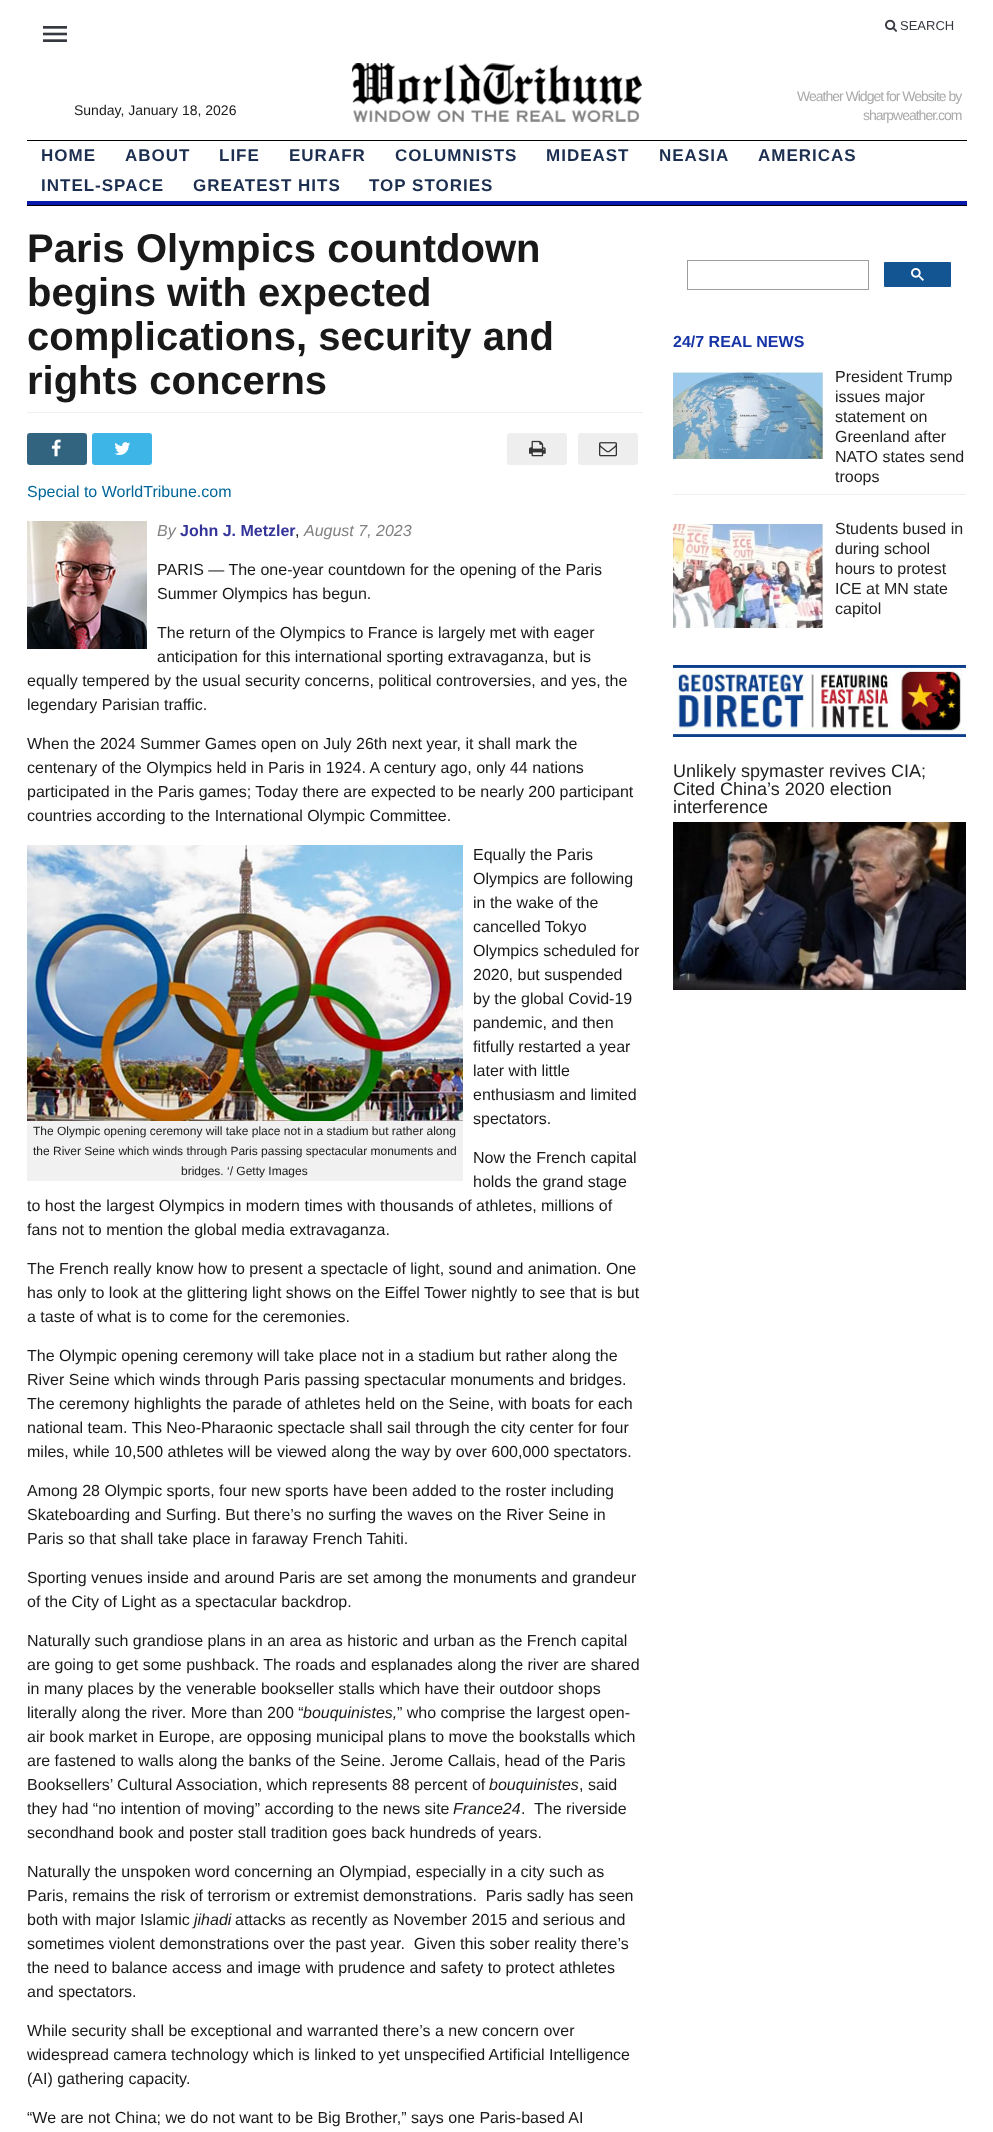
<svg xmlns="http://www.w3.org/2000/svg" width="993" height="2132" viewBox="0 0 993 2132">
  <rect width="100%" height="100%" fill="rgb(255,255,255)"/>
  <image x="43" y="26" width="24" height="16" href="pic1.png"/>
  <image x="885" y="19" width="12" height="13" href="pic2.png"/>
  <text x="900" y="30" font-family="Liberation Sans" font-size="13" fill="rgb(55,57,64)">SEARCH</text>
  <rect x="27" y="140" width="940" height="1" fill="rgb(0,0,0)"/>
  <text x="74" y="115" font-family="Liberation Sans" font-size="14" fill="rgb(25,25,25)">Sunday, January 18, 2026</text>
  <image x="352" y="63" width="290" height="59" href="pic3.png"/>
  <g font-family="Liberation Sans" font-size="14" letter-spacing="-1" fill="rgb(170,170,170)">
    <text x="797" y="101">Weather Widget for Website by</text>
    <text x="863" y="120">sharpweather.com</text>
  </g>
  <rect x="27" y="201" width="940" height="4" fill="rgb(9,25,170)"/>
  <g font-family="Liberation Sans" font-size="17" font-weight="bold" letter-spacing="1" fill="rgb(28,47,80)">
    <text x="41" y="161">HOME</text>
    <text x="125" y="161">ABOUT</text>
    <text x="219" y="161">LIFE</text>
    <text x="289" y="161">EURAFR</text>
    <text x="395" y="161">COLUMNISTS</text>
    <text x="546" y="161">MIDEAST</text>
    <text x="659" y="161">NEASIA</text>
    <text x="758" y="161">AMERICAS</text>
    <text x="41" y="191">INTEL-SPACE</text>
    <text x="193" y="191">GREATEST HITS</text>
    <text x="369" y="191">TOP STORIES</text>
  </g>
  <rect x="27" y="205" width="940" height="1" fill="rgb(0,0,0)"/>
  <rect x="27" y="412" width="616" height="1" fill="rgb(239,239,239)"/>
  <g font-family="Liberation Sans" font-size="40" font-weight="bold" fill="rgb(25,25,25)">
    <text>
      <tspan x="27" y="262">Paris Olympics countdown</tspan>
      <tspan x="27" y="306">begins with expected</tspan>
      <tspan x="27" y="350">complications, security and</tspan>
      <tspan x="27" y="394">rights concerns</tspan>
    </text>
  </g>
  <rect x="27" y="433" width="60" height="32" rx="3" fill="rgb(51,100,127)"/>
  <image x="51" y="439" width="10" height="18" href="pic4.png"/>
  <rect x="92" y="433" width="60" height="32" rx="3" fill="rgb(61,181,230)"/>
  <image x="114" y="442" width="17" height="13" href="pic5.png"/>
  <rect x="507" y="433" width="60" height="32" rx="3" fill="rgb(238,238,238)"/>
  <image x="529" y="440" width="17" height="17" href="pic6.png"/>
  <rect x="578" y="433" width="60" height="32" rx="3" fill="rgb(238,238,238)"/>
  <image x="599" y="442" width="18" height="15" href="pic7.png"/>
  <text x="27" y="497" font-family="Liberation Sans" font-size="16" fill="rgb(0,102,153)">Special to WorldTribune.com</text>
  <image x="27" y="521" width="120" height="128" href="pic8.png"/>
  <text x="157" y="536" font-family="Liberation Sans" font-size="16" font-style="italic" fill="rgb(128,128,128)">By</text>
  <text x="180" y="536" font-family="Liberation Sans" font-size="16" font-weight="bold" fill="rgb(51,51,153)">John J. Metzler</text>
  <text x="295" y="536" font-family="Liberation Sans" font-size="16" fill="rgb(25,25,25)">,</text>
  <text x="304" y="536" font-family="Liberation Sans" font-size="16" font-style="italic" fill="rgb(128,128,128)">August 7, 2023</text>
  <g font-family="Liberation Sans" font-size="16" fill="rgb(25,25,25)">
    <text>
      <tspan x="157" y="575">PARIS — The one-year countdown for the opening of the Paris</tspan>
      <tspan x="157" y="599">Summer Olympics has begun.</tspan>
    </text>
    <text>
      <tspan x="157" y="638">The return of the Olympics to France is largely met with eager</tspan>
      <tspan x="157" y="662">anticipation for this international sporting extravaganza, but is</tspan>
    </text>
    <text>
      <tspan x="27" y="686">equally tempered by the usual security concerns, political controversies, and yes, the</tspan>
      <tspan x="27" y="710">legendary Parisian traffic.</tspan>
    </text>
    <text>
      <tspan x="27" y="749">When the 2024 Summer Games open on July 26th next year, it shall mark the</tspan>
      <tspan x="27" y="773">centenary of the Olympics held in Paris in 1924. A century ago, only 44 nations</tspan>
      <tspan x="27" y="797">participated in the Paris games; Today there are expected to be nearly 200 participant</tspan>
      <tspan x="27" y="821">countries according to the International Olympic Committee.</tspan>
    </text>
    <text>
      <tspan x="473" y="860">Equally the Paris</tspan>
      <tspan x="473" y="884">Olympics are following</tspan>
      <tspan x="473" y="908">in the wake of the</tspan>
      <tspan x="473" y="932">cancelled Tokyo</tspan>
      <tspan x="473" y="956">Olympics scheduled for</tspan>
      <tspan x="473" y="980">2020, but suspended</tspan>
      <tspan x="473" y="1004">by the global Covid-19</tspan>
      <tspan x="473" y="1028">pandemic, and then</tspan>
      <tspan x="473" y="1052">fitfully restarted a year</tspan>
      <tspan x="473" y="1076">later with little</tspan>
      <tspan x="473" y="1100">enthusiasm and limited</tspan>
      <tspan x="473" y="1124">spectators.</tspan>
    </text>
  </g>
  <rect x="27" y="1121" width="436" height="60" fill="rgb(241,241,241)"/>
  <image x="27" y="845" width="436" height="276" href="pic9.png"/>
  <g font-family="Liberation Sans" font-size="12" fill="rgb(25,25,25)">
    <text>
      <tspan x="33" y="1135">The Olympic opening ceremony will take place not in a stadium but rather along</tspan>
      <tspan x="33" y="1155">the River Seine which winds through Paris passing spectacular monuments and</tspan>
    </text>
    <text x="181" y="1175">bridges. ‘/ Getty Images</text>
  </g>
  <g font-family="Liberation Sans" font-size="16" fill="rgb(25,25,25)">
    <text>
      <tspan x="473" y="1163">Now the French capital</tspan>
      <tspan x="473" y="1187">holds the grand stage</tspan>
    </text>
    <text>
      <tspan x="27" y="1211">to host the largest Olympics in modern times with thousands of athletes, millions of</tspan>
      <tspan x="27" y="1235">fans not to mention the global media extravaganza.</tspan>
    </text>
    <text>
      <tspan x="27" y="1274">The French really know how to present a spectacle of light, sound and animation. One</tspan>
      <tspan x="27" y="1298">has only to look at the glittering light shows on the Eiffel Tower nightly to see that is but</tspan>
      <tspan x="27" y="1322">a taste of what is to come for the ceremonies.</tspan>
    </text>
    <text>
      <tspan x="27" y="1361">The Olympic opening ceremony will take place not in a stadium but rather along the</tspan>
      <tspan x="27" y="1385">River Seine which winds through Paris passing spectacular monuments and bridges.</tspan>
      <tspan x="27" y="1409">The ceremony highlights the parade of athletes held on the Seine, with boats for each</tspan>
      <tspan x="27" y="1433">national team. This Neo-Pharaonic spectacle shall sail through the city center for four</tspan>
      <tspan x="27" y="1457">miles, while 10,500 athletes will be viewed along the way by over 600,000 spectators.</tspan>
    </text>
    <text>
      <tspan x="27" y="1496">Among 28 Olympic sports, four new sports have been added to the roster including</tspan>
      <tspan x="27" y="1520">Skateboarding and Surfing. But there’s no surfing the waves on the River Seine in</tspan>
      <tspan x="27" y="1544">Paris so that shall take place in faraway French Tahiti.</tspan>
    </text>
    <text>
      <tspan x="27" y="1583">Sporting venues inside and around Paris are set among the monuments and grandeur</tspan>
      <tspan x="27" y="1607">of the City of Light as a spectacular backdrop.</tspan>
    </text>
    <text>
      <tspan x="27" y="1646">Naturally such grandiose plans in an area as historic and urban as the French capital</tspan>
      <tspan x="27" y="1670">are going to get some pushback. The roads and esplanades along the river are shared</tspan>
      <tspan x="27" y="1694">in many places by the venerable bookseller stalls which have their outdoor shops</tspan>
      <tspan x="27" y="1718">literally along the river. More than 200 “</tspan>
    </text>
  </g>
  <text x="303" y="1718" font-family="Liberation Sans" font-size="16" font-style="italic" fill="rgb(25,25,25)">bouquinistes,</text>
  <g font-family="Liberation Sans" font-size="16" fill="rgb(25,25,25)">
    <text x="397" y="1718">” who comprise the largest open-</text>
    <text>
      <tspan x="27" y="1742">air book market in Europe, are opposing municipal plans to move the bookstalls which</tspan>
      <tspan x="27" y="1766">are fastened to walls along the banks of the Seine. Jerome Callais, head of the Paris</tspan>
      <tspan x="27" y="1790">Booksellers’ Cultural Association, which represents 88 percent of</tspan>
    </text>
  </g>
  <text x="489" y="1790" font-family="Liberation Sans" font-size="16" font-style="italic" fill="rgb(25,25,25)">bouquinistes</text>
  <g font-family="Liberation Sans" font-size="16" fill="rgb(25,25,25)">
    <text x="579" y="1790">, said</text>
    <text x="27" y="1814">they had “no intention of moving” according to the news site</text>
  </g>
  <text x="453" y="1814" font-family="Liberation Sans" font-size="16" font-style="italic" fill="rgb(25,25,25)">France24</text>
  <g font-family="Liberation Sans" font-size="16" fill="rgb(25,25,25)">
    <text x="521" y="1814" xml:space="preserve">.  The riverside</text>
    <text x="27" y="1838">secondhand book and poster stall tradition goes back hundreds of years.</text>
    <text xml:space="preserve"><tspan x="27" y="1877">Naturally the unspoken word concerning an Olympiad, especially in a city such as</tspan><tspan x="27" y="1901">Paris, remains the risk of terrorism or extremist demonstrations.  Paris sadly has seen</tspan><tspan x="27" y="1925">both with major Islamic</tspan></text>
  </g>
  <text x="194" y="1925" font-family="Liberation Sans" font-size="16" font-style="italic" fill="rgb(25,25,25)">jihadi</text>
  <g font-family="Liberation Sans" font-size="16" fill="rgb(25,25,25)">
    <text x="235" y="1925">attacks as recently as November 2015 and serious and</text>
    <text xml:space="preserve"><tspan x="27" y="1949">sometimes violent demonstrations over the past year.  Given this sober reality there’s</tspan><tspan x="27" y="1973">the need to balance access and image with prudence and safety to protect athletes</tspan><tspan x="27" y="1997">and spectators.</tspan></text>
    <text>
      <tspan x="27" y="2036">While security shall be exceptional and warranted there’s a new concern over</tspan>
      <tspan x="27" y="2060">widespread camera technology which is linked to yet unspecified Artificial Intelligence</tspan>
      <tspan x="27" y="2084">(AI) gathering capacity.</tspan>
    </text>
    <text x="27" y="2123">“We are not China; we do not want to be Big Brother,” says one Paris-based AI</text>
  </g>
  <rect x="687.5" y="260.5" width="181" height="29" fill="none" stroke="rgb(158,158,158)"/>
  <rect x="883.5" y="261.5" width="68" height="26" rx="1.5" fill="rgb(18,85,146)" stroke="rgb(255,255,255)"/>
  <image x="911" y="268" width="13" height="13" href="pic10.png"/>
  <text x="673" y="347" font-family="Liberation Sans" font-size="16" font-weight="bold" fill="rgb(22,52,166)">24/7 REAL NEWS</text>
  <rect x="673" y="494" width="293" height="1" fill="rgb(239,239,239)"/>
  <image x="673" y="372" width="150" height="87" href="pic11.png"/>
  <g font-family="Liberation Sans" font-size="16" fill="rgb(34,34,34)">
    <text>
      <tspan x="835" y="382">President Trump</tspan>
      <tspan x="835" y="402">issues major</tspan>
      <tspan x="835" y="422">statement on</tspan>
      <tspan x="835" y="442">Greenland after</tspan>
      <tspan x="835" y="462">NATO states send</tspan>
      <tspan x="835" y="482">troops</tspan>
    </text>
  </g>
  <image x="673" y="524" width="150" height="104" href="pic12.png"/>
  <g font-family="Liberation Sans" font-size="16" fill="rgb(34,34,34)">
    <text>
      <tspan x="835" y="534">Students bused in</tspan>
      <tspan x="835" y="554">during school</tspan>
      <tspan x="835" y="574">hours to protest</tspan>
      <tspan x="835" y="594">ICE at MN state</tspan>
      <tspan x="835" y="614">capitol</tspan>
    </text>
  </g>
  <image x="673" y="665" width="293" height="72" href="pic13.png"/>
  <g font-family="Liberation Sans" font-size="18" fill="rgb(34,34,34)">
    <text>
      <tspan x="673" y="777">Unlikely spymaster revives CIA;</tspan>
      <tspan x="673" y="795">Cited China’s 2020 election</tspan>
      <tspan x="673" y="813">interference</tspan>
    </text>
  </g>
  <image x="673" y="822" width="293" height="168" href="pic14.png"/>
</svg>
